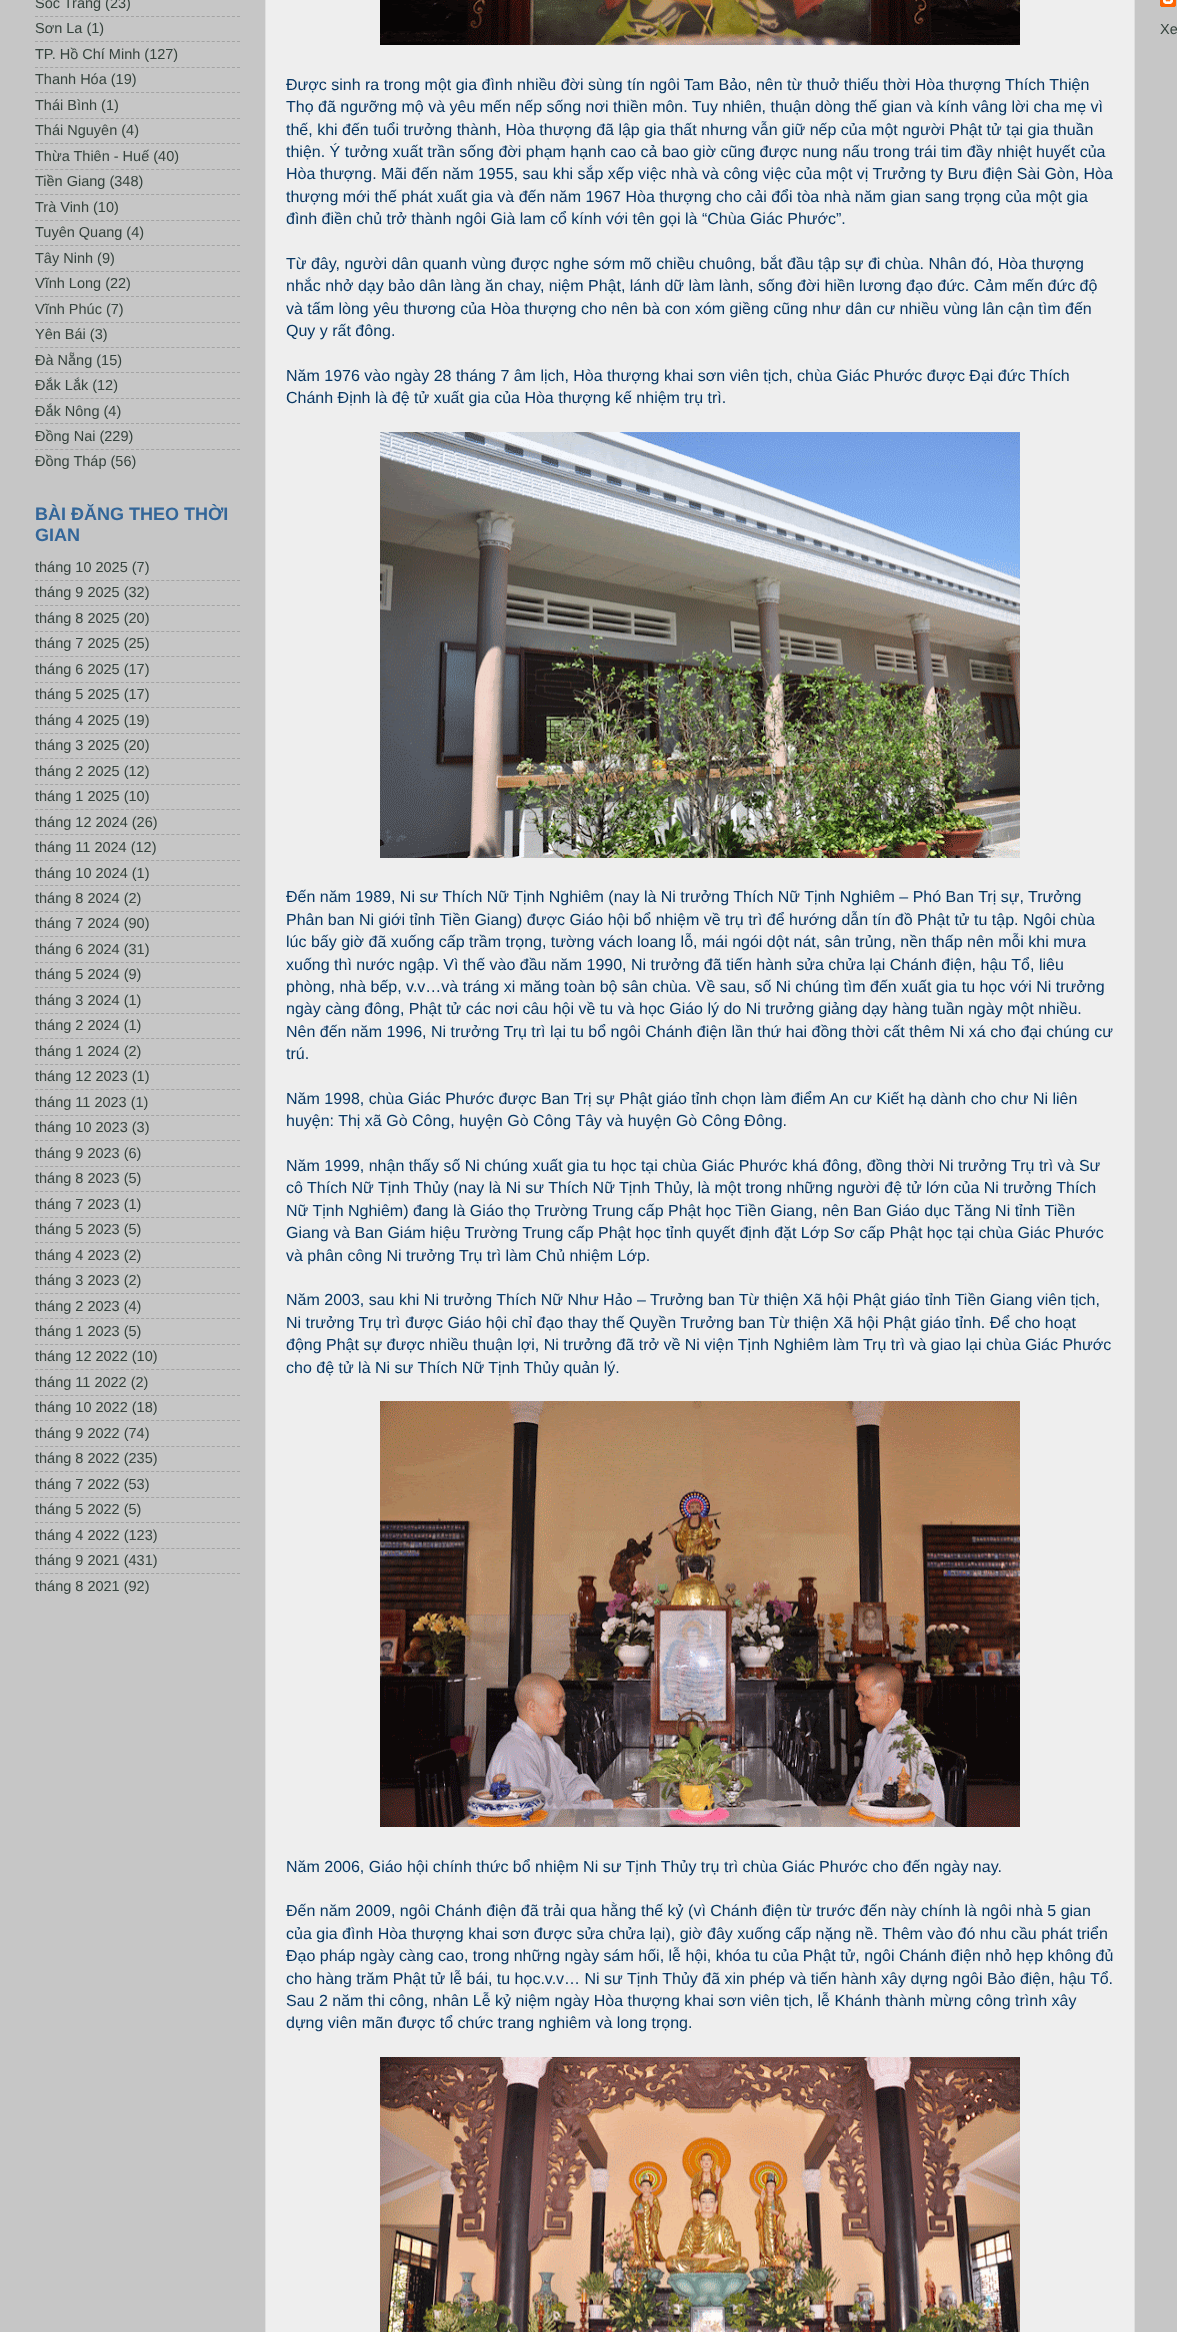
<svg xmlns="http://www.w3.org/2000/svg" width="1177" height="2332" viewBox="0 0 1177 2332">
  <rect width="100%" height="100%" fill="rgb(198,198,198)"/>
  <text x="35" y="8" font-family="Liberation Sans" font-size="14.5" fill="rgb(53,67,61)">Sóc Trăng (23)</text>
  <path d="M35 16.5H240" fill="none" stroke="rgb(163,163,163)" stroke-dasharray="3 2.05"/>
  <text x="35" y="33" font-family="Liberation Sans" font-size="14.5" fill="rgb(53,67,61)">Sơn La (1)</text>
  <path d="M35 41.5H240" fill="none" stroke="rgb(163,163,163)" stroke-dasharray="3 2.05"/>
  <text x="35" y="59" font-family="Liberation Sans" font-size="14.5" fill="rgb(53,67,61)">TP. Hồ Chí Minh (127)</text>
  <path d="M35 67.5H240" fill="none" stroke="rgb(163,163,163)" stroke-dasharray="3 2.05"/>
  <text x="35" y="84" font-family="Liberation Sans" font-size="14.5" fill="rgb(53,67,61)">Thanh Hóa (19)</text>
  <path d="M35 92.5H240" fill="none" stroke="rgb(163,163,163)" stroke-dasharray="3 2.05"/>
  <text x="35" y="110" font-family="Liberation Sans" font-size="14.5" fill="rgb(53,67,61)">Thái Bình (1)</text>
  <path d="M35 118.5H240" fill="none" stroke="rgb(163,163,163)" stroke-dasharray="3 2.05"/>
  <text x="35" y="135" font-family="Liberation Sans" font-size="14.5" fill="rgb(53,67,61)">Thái Nguyên (4)</text>
  <path d="M35 143.5H240" fill="none" stroke="rgb(163,163,163)" stroke-dasharray="3 2.05"/>
  <text x="35" y="161" font-family="Liberation Sans" font-size="14.5" fill="rgb(53,67,61)">Thừa Thiên - Huế (40)</text>
  <path d="M35 169.5H240" fill="none" stroke="rgb(163,163,163)" stroke-dasharray="3 2.05"/>
  <text x="35" y="186" font-family="Liberation Sans" font-size="14.5" fill="rgb(53,67,61)">Tiền Giang (348)</text>
  <path d="M35 194.5H240" fill="none" stroke="rgb(163,163,163)" stroke-dasharray="3 2.05"/>
  <text x="35" y="212" font-family="Liberation Sans" font-size="14.5" fill="rgb(53,67,61)">Trà Vinh (10)</text>
  <path d="M35 220.5H240" fill="none" stroke="rgb(163,163,163)" stroke-dasharray="3 2.05"/>
  <text x="35" y="237" font-family="Liberation Sans" font-size="14.5" fill="rgb(53,67,61)">Tuyên Quang (4)</text>
  <path d="M35 245.5H240" fill="none" stroke="rgb(163,163,163)" stroke-dasharray="3 2.05"/>
  <text x="35" y="263" font-family="Liberation Sans" font-size="14.5" fill="rgb(53,67,61)">Tây Ninh (9)</text>
  <path d="M35 271.5H240" fill="none" stroke="rgb(163,163,163)" stroke-dasharray="3 2.05"/>
  <text x="35" y="288" font-family="Liberation Sans" font-size="14.5" fill="rgb(53,67,61)">Vĩnh Long (22)</text>
  <path d="M35 296.5H240" fill="none" stroke="rgb(163,163,163)" stroke-dasharray="3 2.05"/>
  <text x="35" y="314" font-family="Liberation Sans" font-size="14.5" fill="rgb(53,67,61)">Vĩnh Phúc (7)</text>
  <path d="M35 322.5H240" fill="none" stroke="rgb(163,163,163)" stroke-dasharray="3 2.05"/>
  <text x="35" y="339" font-family="Liberation Sans" font-size="14.5" fill="rgb(53,67,61)">Yên Bái (3)</text>
  <path d="M35 347.5H240" fill="none" stroke="rgb(163,163,163)" stroke-dasharray="3 2.05"/>
  <text x="35" y="365" font-family="Liberation Sans" font-size="14.5" fill="rgb(53,67,61)">Đà Nẵng (15)</text>
  <path d="M35 372.5H240" fill="none" stroke="rgb(163,163,163)" stroke-dasharray="3 2.05"/>
  <text x="35" y="390" font-family="Liberation Sans" font-size="14.5" fill="rgb(53,67,61)">Đắk Lắk (12)</text>
  <path d="M35 398.5H240" fill="none" stroke="rgb(163,163,163)" stroke-dasharray="3 2.05"/>
  <text x="35" y="416" font-family="Liberation Sans" font-size="14.5" fill="rgb(53,67,61)">Đắk Nông (4)</text>
  <path d="M35 423.5H240" fill="none" stroke="rgb(163,163,163)" stroke-dasharray="3 2.05"/>
  <text x="35" y="441" font-family="Liberation Sans" font-size="14.5" fill="rgb(53,67,61)">Đồng Nai (229)</text>
  <path d="M35 449.5H240" fill="none" stroke="rgb(163,163,163)" stroke-dasharray="3 2.05"/>
  <text x="35" y="466" font-family="Liberation Sans" font-size="14.5" fill="rgb(53,67,61)">Đồng Tháp (56)</text>
  <g font-family="Liberation Sans" font-size="18" font-weight="bold" fill="rgb(51,102,153)">
    <text>
      <tspan x="35" y="520">BÀI ĐĂNG THEO THỜI</tspan>
      <tspan x="35" y="541">GIAN</tspan>
    </text>
  </g>
  <text x="35" y="572" font-family="Liberation Sans" font-size="14.5" fill="rgb(53,67,61)">tháng 10 2025 (7)</text>
  <path d="M35 580.5H240" fill="none" stroke="rgb(163,163,163)" stroke-dasharray="3 2.05"/>
  <text x="35" y="597" font-family="Liberation Sans" font-size="14.5" fill="rgb(53,67,61)">tháng 9 2025 (32)</text>
  <path d="M35 605.5H240" fill="none" stroke="rgb(163,163,163)" stroke-dasharray="3 2.05"/>
  <text x="35" y="623" font-family="Liberation Sans" font-size="14.5" fill="rgb(53,67,61)">tháng 8 2025 (20)</text>
  <path d="M35 631.5H240" fill="none" stroke="rgb(163,163,163)" stroke-dasharray="3 2.05"/>
  <text x="35" y="648" font-family="Liberation Sans" font-size="14.5" fill="rgb(53,67,61)">tháng 7 2025 (25)</text>
  <path d="M35 656.5H240" fill="none" stroke="rgb(163,163,163)" stroke-dasharray="3 2.05"/>
  <text x="35" y="674" font-family="Liberation Sans" font-size="14.5" fill="rgb(53,67,61)">tháng 6 2025 (17)</text>
  <path d="M35 682.5H240" fill="none" stroke="rgb(163,163,163)" stroke-dasharray="3 2.05"/>
  <text x="35" y="699" font-family="Liberation Sans" font-size="14.5" fill="rgb(53,67,61)">tháng 5 2025 (17)</text>
  <path d="M35 707.5H240" fill="none" stroke="rgb(163,163,163)" stroke-dasharray="3 2.05"/>
  <text x="35" y="725" font-family="Liberation Sans" font-size="14.5" fill="rgb(53,67,61)">tháng 4 2025 (19)</text>
  <path d="M35 733.5H240" fill="none" stroke="rgb(163,163,163)" stroke-dasharray="3 2.05"/>
  <text x="35" y="750" font-family="Liberation Sans" font-size="14.5" fill="rgb(53,67,61)">tháng 3 2025 (20)</text>
  <path d="M35 758.5H240" fill="none" stroke="rgb(163,163,163)" stroke-dasharray="3 2.05"/>
  <text x="35" y="776" font-family="Liberation Sans" font-size="14.5" fill="rgb(53,67,61)">tháng 2 2025 (12)</text>
  <path d="M35 784.5H240" fill="none" stroke="rgb(163,163,163)" stroke-dasharray="3 2.05"/>
  <text x="35" y="801" font-family="Liberation Sans" font-size="14.5" fill="rgb(53,67,61)">tháng 1 2025 (10)</text>
  <path d="M35 809.5H240" fill="none" stroke="rgb(163,163,163)" stroke-dasharray="3 2.05"/>
  <text x="35" y="827" font-family="Liberation Sans" font-size="14.5" fill="rgb(53,67,61)">tháng 12 2024 (26)</text>
  <path d="M35 834.5H240" fill="none" stroke="rgb(163,163,163)" stroke-dasharray="3 2.05"/>
  <text x="35" y="852" font-family="Liberation Sans" font-size="14.5" fill="rgb(53,67,61)">tháng 11 2024 (12)</text>
  <path d="M35 860.5H240" fill="none" stroke="rgb(163,163,163)" stroke-dasharray="3 2.05"/>
  <text x="35" y="878" font-family="Liberation Sans" font-size="14.5" fill="rgb(53,67,61)">tháng 10 2024 (1)</text>
  <path d="M35 885.5H240" fill="none" stroke="rgb(163,163,163)" stroke-dasharray="3 2.05"/>
  <text x="35" y="903" font-family="Liberation Sans" font-size="14.5" fill="rgb(53,67,61)">tháng 8 2024 (2)</text>
  <path d="M35 911.5H240" fill="none" stroke="rgb(163,163,163)" stroke-dasharray="3 2.05"/>
  <text x="35" y="928" font-family="Liberation Sans" font-size="14.5" fill="rgb(53,67,61)">tháng 7 2024 (90)</text>
  <path d="M35 936.5H240" fill="none" stroke="rgb(163,163,163)" stroke-dasharray="3 2.05"/>
  <text x="35" y="954" font-family="Liberation Sans" font-size="14.5" fill="rgb(53,67,61)">tháng 6 2024 (31)</text>
  <path d="M35 962.5H240" fill="none" stroke="rgb(163,163,163)" stroke-dasharray="3 2.05"/>
  <text x="35" y="979" font-family="Liberation Sans" font-size="14.5" fill="rgb(53,67,61)">tháng 5 2024 (9)</text>
  <path d="M35 987.5H240" fill="none" stroke="rgb(163,163,163)" stroke-dasharray="3 2.05"/>
  <text x="35" y="1005" font-family="Liberation Sans" font-size="14.5" fill="rgb(53,67,61)">tháng 3 2024 (1)</text>
  <path d="M35 1013.5H240" fill="none" stroke="rgb(163,163,163)" stroke-dasharray="3 2.05"/>
  <text x="35" y="1030" font-family="Liberation Sans" font-size="14.5" fill="rgb(53,67,61)">tháng 2 2024 (1)</text>
  <path d="M35 1038.5H240" fill="none" stroke="rgb(163,163,163)" stroke-dasharray="3 2.05"/>
  <text x="35" y="1056" font-family="Liberation Sans" font-size="14.5" fill="rgb(53,67,61)">tháng 1 2024 (2)</text>
  <path d="M35 1064.5H240" fill="none" stroke="rgb(163,163,163)" stroke-dasharray="3 2.05"/>
  <text x="35" y="1081" font-family="Liberation Sans" font-size="14.5" fill="rgb(53,67,61)">tháng 12 2023 (1)</text>
  <path d="M35 1089.5H240" fill="none" stroke="rgb(163,163,163)" stroke-dasharray="3 2.05"/>
  <text x="35" y="1107" font-family="Liberation Sans" font-size="14.5" fill="rgb(53,67,61)">tháng 11 2023 (1)</text>
  <path d="M35 1115.5H240" fill="none" stroke="rgb(163,163,163)" stroke-dasharray="3 2.05"/>
  <text x="35" y="1132" font-family="Liberation Sans" font-size="14.5" fill="rgb(53,67,61)">tháng 10 2023 (3)</text>
  <path d="M35 1140.5H240" fill="none" stroke="rgb(163,163,163)" stroke-dasharray="3 2.05"/>
  <text x="35" y="1158" font-family="Liberation Sans" font-size="14.5" fill="rgb(53,67,61)">tháng 9 2023 (6)</text>
  <path d="M35 1166.5H240" fill="none" stroke="rgb(163,163,163)" stroke-dasharray="3 2.05"/>
  <text x="35" y="1183" font-family="Liberation Sans" font-size="14.5" fill="rgb(53,67,61)">tháng 8 2023 (5)</text>
  <path d="M35 1191.5H240" fill="none" stroke="rgb(163,163,163)" stroke-dasharray="3 2.05"/>
  <text x="35" y="1209" font-family="Liberation Sans" font-size="14.5" fill="rgb(53,67,61)">tháng 7 2023 (1)</text>
  <path d="M35 1217.5H240" fill="none" stroke="rgb(163,163,163)" stroke-dasharray="3 2.05"/>
  <text x="35" y="1234" font-family="Liberation Sans" font-size="14.5" fill="rgb(53,67,61)">tháng 5 2023 (5)</text>
  <path d="M35 1242.5H240" fill="none" stroke="rgb(163,163,163)" stroke-dasharray="3 2.05"/>
  <text x="35" y="1260" font-family="Liberation Sans" font-size="14.5" fill="rgb(53,67,61)">tháng 4 2023 (2)</text>
  <path d="M35 1267.5H240" fill="none" stroke="rgb(163,163,163)" stroke-dasharray="3 2.05"/>
  <text x="35" y="1285" font-family="Liberation Sans" font-size="14.5" fill="rgb(53,67,61)">tháng 3 2023 (2)</text>
  <path d="M35 1293.5H240" fill="none" stroke="rgb(163,163,163)" stroke-dasharray="3 2.05"/>
  <text x="35" y="1311" font-family="Liberation Sans" font-size="14.5" fill="rgb(53,67,61)">tháng 2 2023 (4)</text>
  <path d="M35 1318.5H240" fill="none" stroke="rgb(163,163,163)" stroke-dasharray="3 2.05"/>
  <text x="35" y="1336" font-family="Liberation Sans" font-size="14.5" fill="rgb(53,67,61)">tháng 1 2023 (5)</text>
  <path d="M35 1344.5H240" fill="none" stroke="rgb(163,163,163)" stroke-dasharray="3 2.05"/>
  <text x="35" y="1361" font-family="Liberation Sans" font-size="14.5" fill="rgb(53,67,61)">tháng 12 2022 (10)</text>
  <path d="M35 1369.5H240" fill="none" stroke="rgb(163,163,163)" stroke-dasharray="3 2.05"/>
  <text x="35" y="1387" font-family="Liberation Sans" font-size="14.5" fill="rgb(53,67,61)">tháng 11 2022 (2)</text>
  <path d="M35 1395.5H240" fill="none" stroke="rgb(163,163,163)" stroke-dasharray="3 2.05"/>
  <text x="35" y="1412" font-family="Liberation Sans" font-size="14.5" fill="rgb(53,67,61)">tháng 10 2022 (18)</text>
  <path d="M35 1420.5H240" fill="none" stroke="rgb(163,163,163)" stroke-dasharray="3 2.05"/>
  <text x="35" y="1438" font-family="Liberation Sans" font-size="14.5" fill="rgb(53,67,61)">tháng 9 2022 (74)</text>
  <path d="M35 1446.5H240" fill="none" stroke="rgb(163,163,163)" stroke-dasharray="3 2.05"/>
  <text x="35" y="1463" font-family="Liberation Sans" font-size="14.5" fill="rgb(53,67,61)">tháng 8 2022 (235)</text>
  <path d="M35 1471.5H240" fill="none" stroke="rgb(163,163,163)" stroke-dasharray="3 2.05"/>
  <text x="35" y="1489" font-family="Liberation Sans" font-size="14.5" fill="rgb(53,67,61)">tháng 7 2022 (53)</text>
  <path d="M35 1497.5H240" fill="none" stroke="rgb(163,163,163)" stroke-dasharray="3 2.05"/>
  <text x="35" y="1514" font-family="Liberation Sans" font-size="14.5" fill="rgb(53,67,61)">tháng 5 2022 (5)</text>
  <path d="M35 1522.5H240" fill="none" stroke="rgb(163,163,163)" stroke-dasharray="3 2.05"/>
  <text x="35" y="1540" font-family="Liberation Sans" font-size="14.5" fill="rgb(53,67,61)">tháng 4 2022 (123)</text>
  <path d="M35 1548.5H240" fill="none" stroke="rgb(163,163,163)" stroke-dasharray="3 2.05"/>
  <text x="35" y="1565" font-family="Liberation Sans" font-size="14.5" fill="rgb(53,67,61)">tháng 9 2021 (431)</text>
  <path d="M35 1573.5H240" fill="none" stroke="rgb(163,163,163)" stroke-dasharray="3 2.05"/>
  <text x="35" y="1591" font-family="Liberation Sans" font-size="14.5" fill="rgb(53,67,61)">tháng 8 2021 (92)</text>
  <image x="1160" y="0" width="16" height="7" href="pic1.png"/>
  <text x="1160" y="34" font-family="Liberation Sans" font-size="14.5" fill="rgb(53,67,61)">Xe</text>
  <rect x="265.5" y="-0.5" width="869" height="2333" fill="rgb(238,238,238)" stroke="rgb(223,223,223)"/>
  <image x="380" y="0" width="640" height="45" href="pic2.png"/>
  <g font-family="Liberation Sans" font-size="16" fill="rgb(7,55,99)">
    <text>
      <tspan x="286" y="90">Được sinh ra trong một gia đình nhiều đời sùng tín ngôi Tam Bảo, nên từ thuở thiếu thời Hòa thượng Thích Thiện</tspan>
      <tspan x="286" y="112">Thọ đã ngưỡng mộ và yêu mến nếp sống nơi thiền môn. Tuy nhiên, thuận dòng thế gian và kính vâng lời cha mẹ vì</tspan>
      <tspan x="286" y="135">thế, khi đến tuổi trưởng thành, Hòa thượng đã lập gia thất nhưng vẫn giữ nếp của một người Phật tử tại gia thuần</tspan>
      <tspan x="286" y="157">thiện. Ý tưởng xuất trần sống đời phạm hạnh cao cả bao giờ cũng được nung nấu trong trái tim đầy nhiệt huyết của</tspan>
      <tspan x="286" y="179">Hòa thượng. Mãi đến năm 1955, sau khi sắp xếp việc nhà và công việc của một vị Trưởng ty Bưu điện Sài Gòn, Hòa</tspan>
      <tspan x="286" y="202">thượng mới thế phát xuất gia và đến năm 1967 Hòa thượng cho cải đổi tòa nhà năm gian sang trọng của một gia</tspan>
      <tspan x="286" y="224">đình điền chủ trở thành ngôi Già lam cổ kính với tên gọi là “Chùa Giác Phước”.</tspan>
    </text>
    <text>
      <tspan x="286" y="269">Từ đây, người dân quanh vùng được nghe sớm mõ chiều chuông, bắt đầu tập sự đi chùa. Nhân đó, Hòa thượng</tspan>
      <tspan x="286" y="291">nhắc nhở dạy bảo dân làng ăn chay, niệm Phật, lánh dữ làm lành, sống đời hiền lương đạo đức. Cảm mến đức độ</tspan>
      <tspan x="286" y="314">và tấm lòng yêu thương của Hòa thượng cho nên bà con xóm giềng cũng như dân cư nhiều vùng lân cận tìm đến</tspan>
      <tspan x="286" y="336">Quy y rất đông.</tspan>
    </text>
    <text>
      <tspan x="286" y="381">Năm 1976 vào ngày 28 tháng 7 âm lịch, Hòa thượng khai sơn viên tịch, chùa Giác Phước được Đại đức Thích</tspan>
      <tspan x="286" y="403">Chánh Định là đệ tử xuất gia của Hòa thượng kế nhiệm trụ trì.</tspan>
    </text>
  </g>
  <image x="380" y="432" width="640" height="426" href="pic3.png"/>
  <g font-family="Liberation Sans" font-size="16" fill="rgb(7,55,99)">
    <text>
      <tspan x="286" y="902">Đến năm 1989, Ni sư Thích Nữ Tịnh Nghiêm (nay là Ni trưởng Thích Nữ Tịnh Nghiêm – Phó Ban Trị sự, Trưởng</tspan>
      <tspan x="286" y="925">Phân ban Ni giới tỉnh Tiền Giang) được Giáo hội bổ nhiệm về trụ trì để hướng dẫn tín đồ Phật tử tu tập. Ngôi chùa</tspan>
      <tspan x="286" y="947">lúc bấy giờ đã xuống cấp trầm trọng, tường vách loang lỗ, mái ngói dột nát, sân trủng, nền thấp nên mỗi khi mưa</tspan>
      <tspan x="286" y="970">xuống thì nước ngập. Vì thế vào đầu năm 1990, Ni trưởng đã tiến hành sửa chửa lại Chánh điện, hậu Tổ, liêu</tspan>
      <tspan x="286" y="992">phòng, nhà bếp, v.v…và tráng xi măng toàn bộ sân chùa. Về sau, số Ni chúng tìm đến xuất gia tu học với Ni trưởng</tspan>
      <tspan x="286" y="1014">ngày càng đông, Phật tử các nơi câu hội về tu và học Giáo lý do Ni trưởng giảng dạy hàng tuần ngày một nhiều.</tspan>
      <tspan x="286" y="1037">Nên đến năm 1996, Ni trưởng Trụ trì lại tu bổ ngôi Chánh điện lần thứ hai đồng thời cất thêm Ni xá cho đại chúng cư</tspan>
      <tspan x="286" y="1059">trú.</tspan>
    </text>
    <text>
      <tspan x="286" y="1104">Năm 1998, chùa Giác Phước được Ban Trị sự Phật giáo tỉnh chọn làm điểm An cư Kiết hạ dành cho chư Ni liên</tspan>
      <tspan x="286" y="1126">huyện: Thị xã Gò Công, huyện Gò Công Tây và huyện Gò Công Đông.</tspan>
    </text>
    <text>
      <tspan x="286" y="1171">Năm 1999, nhận thấy số Ni chúng xuất gia tu học tại chùa Giác Phước khá đông, đồng thời Ni trưởng Trụ trì và Sư</tspan>
      <tspan x="286" y="1193">cô Thích Nữ Tịnh Thủy (nay là Ni sư Thích Nữ Tịnh Thủy, là một trong những người đệ tử lớn của Ni trưởng Thích</tspan>
      <tspan x="286" y="1216">Nữ Tịnh Nghiêm) đang là Giáo thọ Trường Trung cấp Phật học Tiền Giang, nên Ban Giáo dục Tăng Ni tỉnh Tiền</tspan>
      <tspan x="286" y="1238">Giang và Ban Giám hiệu Trường Trung cấp Phật học tỉnh quyết định đặt Lớp Sơ cấp Phật học tại chùa Giác Phước</tspan>
      <tspan x="286" y="1261">và phân công Ni trưởng Trụ trì làm Chủ nhiệm Lớp.</tspan>
    </text>
    <text>
      <tspan x="286" y="1305">Năm 2003, sau khi Ni trưởng Thích Nữ Như Hảo – Trưởng ban Từ thiện Xã hội Phật giáo tỉnh Tiền Giang viên tịch,</tspan>
      <tspan x="286" y="1328">Ni trưởng Trụ trì được Giáo hội chỉ đạo thay thế Quyền Trưởng ban Từ thiện Xã hội Phật giáo tỉnh. Để cho hoạt</tspan>
      <tspan x="286" y="1350">động Phật sự được nhiều thuận lợi, Ni trưởng đã trở về Ni viện Tịnh Nghiêm làm Trụ trì và giao lại chùa Giác Phước</tspan>
      <tspan x="286" y="1373">cho đệ tử là Ni sư Thích Nữ Tịnh Thủy quản lý.</tspan>
    </text>
  </g>
  <image x="380" y="1401" width="640" height="426" href="pic4.png"/>
  <g font-family="Liberation Sans" font-size="16" fill="rgb(7,55,99)">
    <text x="286" y="1872">Năm 2006, Giáo hội chính thức bổ nhiệm Ni sư Tịnh Thủy trụ trì chùa Giác Phước cho đến ngày nay.</text>
    <text>
      <tspan x="286" y="1916">Đến năm 2009, ngôi Chánh điện đã trải qua hằng thế kỷ (vì Chánh điện từ trước đến này chính là ngôi nhà 5 gian</tspan>
      <tspan x="286" y="1939">của gia đình Hòa thượng khai sơn được sửa chửa lại), giờ đây xuống cấp nặng nề. Thêm vào đó nhu cầu phát triển</tspan>
      <tspan x="286" y="1961">Đạo pháp ngày càng cao, trong những ngày sám hối, lễ hội, khóa tu của Phật tử, ngôi Chánh điện nhỏ hẹp không đủ</tspan>
      <tspan x="286" y="1984">cho hàng trăm Phật tử lễ bái, tu học.v.v… Ni sư Tịnh Thủy đã xin phép và tiến hành xây dựng ngôi Bảo điện, hậu Tổ.</tspan>
      <tspan x="286" y="2006">Sau 2 năm thi công, nhân Lễ kỷ niệm ngày Hòa thượng khai sơn viên tịch, lễ Khánh thành mừng công trình xây</tspan>
      <tspan x="286" y="2028">dựng viên mãn được tổ chức trang nghiêm và long trọng.</tspan>
    </text>
  </g>
  <image x="380" y="2057" width="640" height="275" href="pic5.png"/>
</svg>
